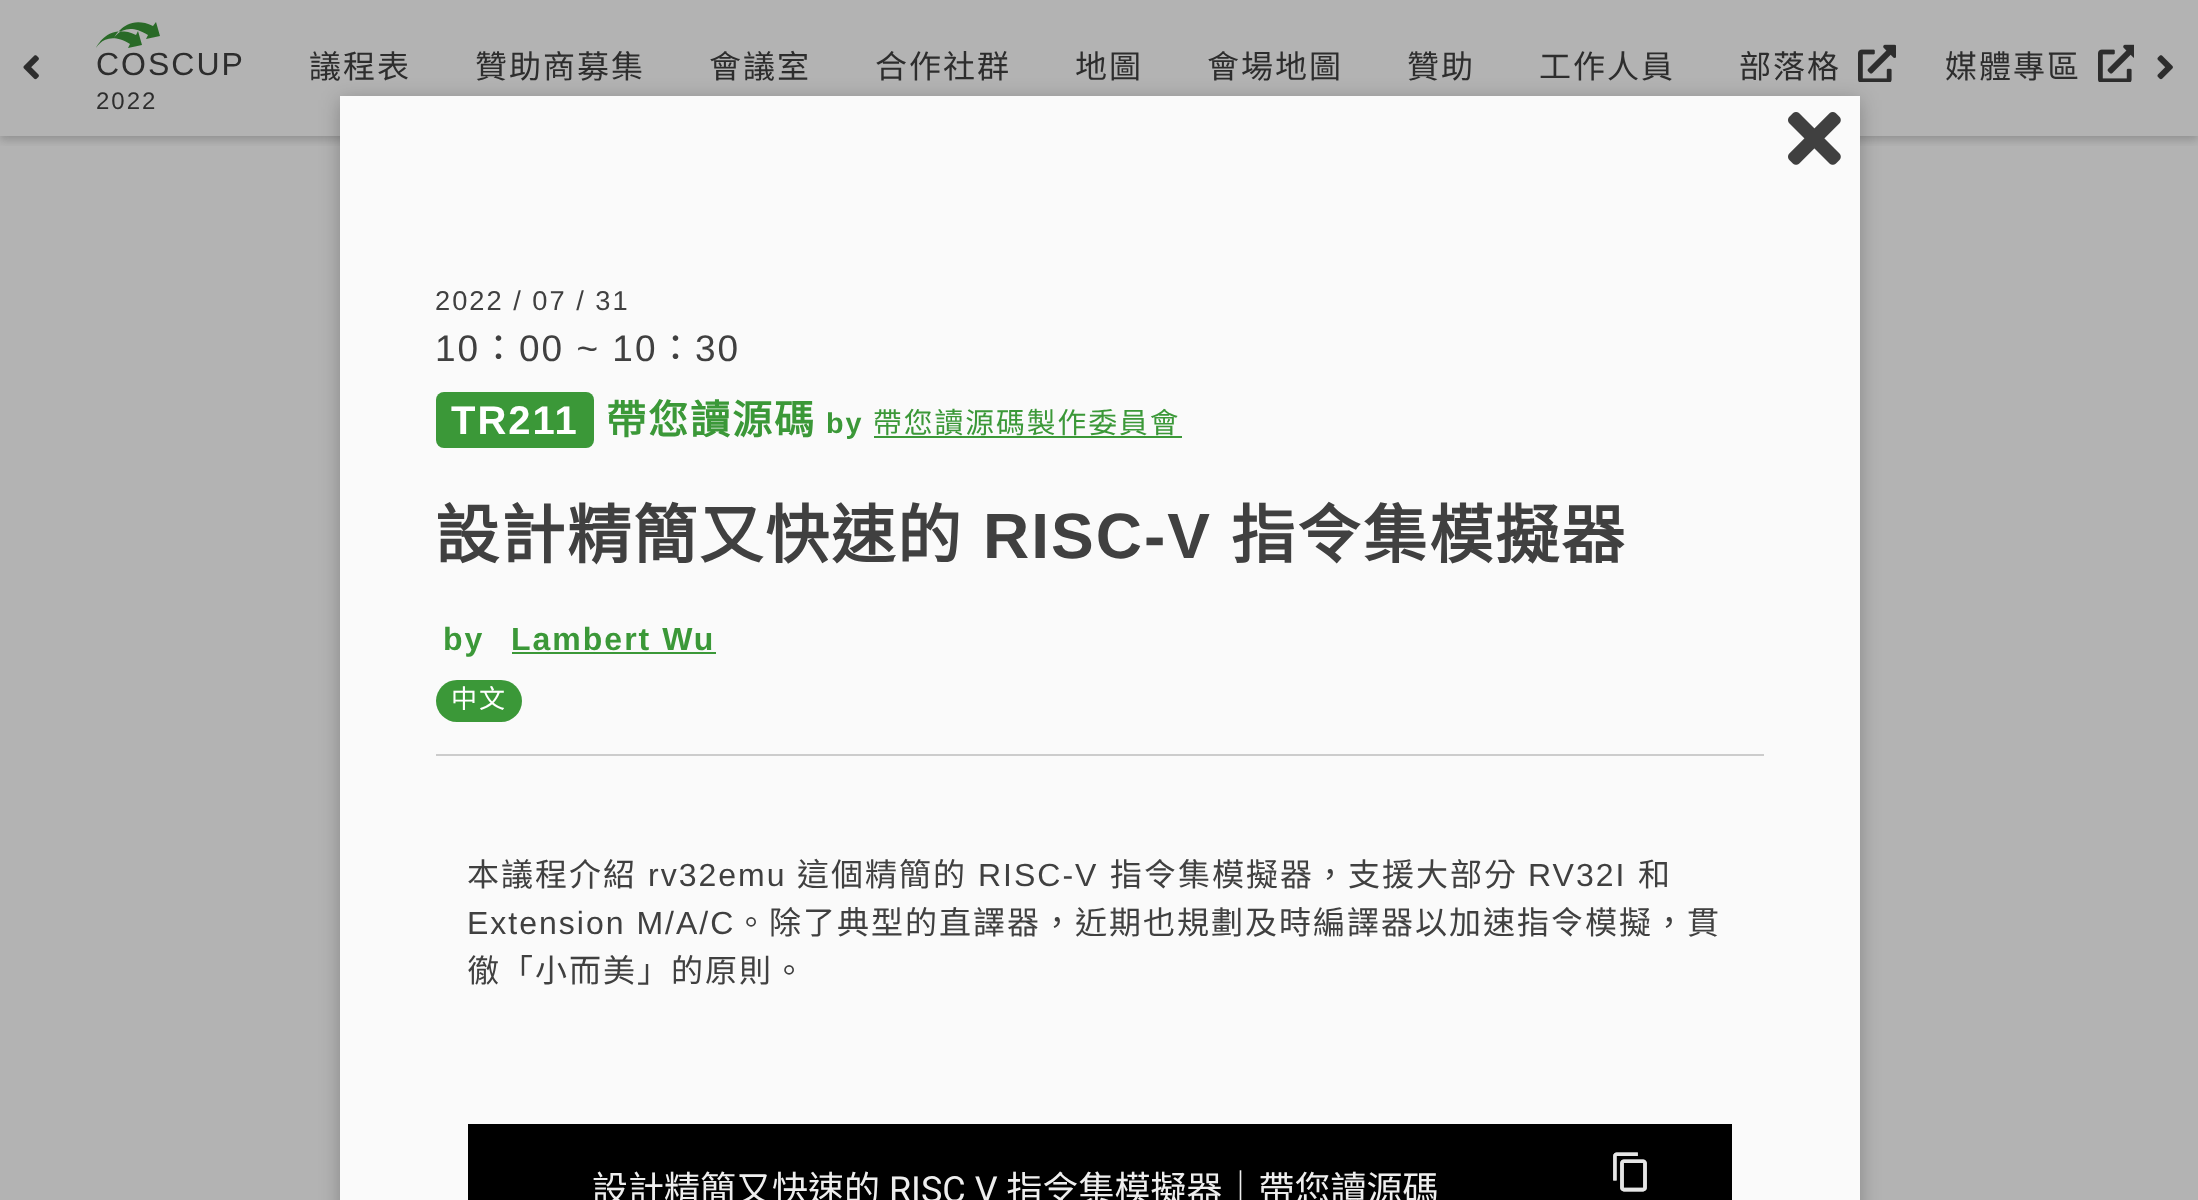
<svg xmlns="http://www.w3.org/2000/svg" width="2198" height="1200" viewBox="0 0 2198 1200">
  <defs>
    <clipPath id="clip1"><rect x="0" y="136" width="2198" height="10"/></clipPath>
  </defs>
  <rect width="100%" height="100%" fill="rgb(179,179,179)"/>
  <g clip-path="url(#clip1)">
    <rect x="0" y="4" width="2198" height="136" fill="rgba(46,46,46,0.25)" filter="blur(4px)"/>
  </g>
  <image x="23" y="55" width="16" height="25" href="pic1.png"/>
  <path d="M142 45L138 31L136 35C108 22 96 48 96 48C96 48 106 29 130 44L128 48ZM160 36L156 22L153 26C126 13 114 38 114 38C114 38 124 20 148 35L146 39Z" fill="rgb(41,106,39)" fill-rule="evenodd"/>
  <text x="96" y="75" font-family="Liberation Sans" font-size="32" letter-spacing="2" fill="rgb(45,45,45)">COSCUP</text>
  <text x="96" y="109" font-family="Liberation Sans" font-size="24" letter-spacing="2" fill="rgb(45,45,45)">2022</text>
  <g font-family="Noto Sans CJK TC" font-size="32" letter-spacing="2" fill="rgb(45,45,45)">
    <text x="309" y="78">議程表</text>
    <text x="475" y="78">贊助商募集</text>
    <text x="709" y="78">會議室</text>
    <text x="875" y="78">合作社群</text>
    <text x="1075" y="78">地圖</text>
    <text x="1207" y="78">會場地圖</text>
    <text x="1407" y="78">贊助</text>
    <text x="1539" y="78">工作人員</text>
    <text x="1739" y="78">部落格</text>
  </g>
  <image x="1858" y="44" width="38" height="38" href="pic2.png"/>
  <text x="1945" y="78" font-family="Noto Sans CJK TC" font-size="32" letter-spacing="2" fill="rgb(45,45,45)">媒體專區</text>
  <image x="2098" y="44" width="36" height="38" href="pic3.png"/>
  <image x="2157" y="55" width="16" height="25" href="pic4.png"/>
  <rect x="340" y="100" width="1520" height="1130" fill="rgba(0,0,0,0.25)" filter="blur(10px)"/>
  <rect x="340" y="96" width="1520" height="1104" fill="rgb(250,250,250)"/>
  <image x="1788" y="112" width="53" height="53" href="pic5.png"/>
  <rect x="436" y="754" width="1328" height="2" fill="rgb(204,204,204)"/>
  <text x="435" y="310" font-family="Liberation Sans" font-size="27.25" letter-spacing="2" fill="rgb(64,64,64)">2022 / 07 / 31</text>
  <text x="435" y="361" font-family="Liberation Sans" font-size="37" letter-spacing="2" fill="rgb(64,64,64)">10</text>
  <text x="480" y="361" font-family="Noto Sans CJK TC" font-size="37" letter-spacing="2" fill="rgb(64,64,64)">：</text>
  <text x="519" y="361" font-family="Liberation Sans" font-size="37" letter-spacing="2" fill="rgb(64,64,64)">00 ~ 10</text>
  <text x="657" y="361" font-family="Noto Sans CJK TC" font-size="37" letter-spacing="2" fill="rgb(64,64,64)">：</text>
  <text x="695" y="361" font-family="Liberation Sans" font-size="37" letter-spacing="2" fill="rgb(64,64,64)">30</text>
  <rect x="436" y="392" width="158" height="56" rx="8" fill="rgb(59,152,56)"/>
  <text x="451" y="434" font-family="Liberation Sans" font-size="40" font-weight="bold" letter-spacing="2" fill="rgb(255,255,255)">TR211</text>
  <text x="606" y="434" font-family="Noto Sans CJK TC" font-size="40" font-weight="bold" letter-spacing="2" fill="rgb(59,152,56)">帶您讀源碼</text>
  <text x="826" y="433" font-family="Liberation Sans" font-size="28.75" font-weight="bold" letter-spacing="2" fill="rgb(59,152,56)">by</text>
  <text x="873" y="433" font-family="Noto Sans CJK TC" font-size="28.75" letter-spacing="2" fill="rgb(59,152,56)">帶您讀源碼製作委員會</text>
  <rect x="874" y="436" width="308" height="2" fill="rgb(59,152,56)"/>
  <text x="435" y="558" font-family="Noto Sans CJK TC" font-size="64" font-weight="bold" letter-spacing="2" fill="rgb(64,64,64)">設計精簡又快速的</text>
  <text x="983" y="558" font-family="Liberation Sans" font-size="64" font-weight="bold" letter-spacing="2" fill="rgb(64,64,64)">RISC-V</text>
  <text x="1231" y="558" font-family="Noto Sans CJK TC" font-size="64" font-weight="bold" letter-spacing="2" fill="rgb(64,64,64)">指令集模擬器</text>
  <g font-family="Liberation Sans" font-size="32" font-weight="bold" letter-spacing="2" fill="rgb(59,152,56)">
    <text x="443" y="650">by</text>
    <text x="511" y="650">Lambert Wu</text>
  </g>
  <rect x="512" y="652" width="204" height="2" fill="rgb(59,152,56)"/>
  <rect x="436" y="680" width="86" height="42" rx="21" fill="rgb(59,152,56)"/>
  <text x="451" y="708" font-family="Noto Sans CJK TC" font-size="26" letter-spacing="2" fill="rgb(255,255,255)">中文</text>
  <text x="467" y="886" font-family="Noto Sans CJK TC" font-size="32" letter-spacing="2" fill="rgb(64,64,64)">本議程介紹</text>
  <text x="648" y="886" font-family="Liberation Sans" font-size="32" letter-spacing="2" fill="rgb(64,64,64)">rv32emu</text>
  <text x="797" y="886" font-family="Noto Sans CJK TC" font-size="32" letter-spacing="2" fill="rgb(64,64,64)">這個精簡的</text>
  <text x="978" y="886" font-family="Liberation Sans" font-size="32" letter-spacing="2" fill="rgb(64,64,64)">RISC-V</text>
  <text x="1110" y="886" font-family="Noto Sans CJK TC" font-size="32" letter-spacing="2" fill="rgb(64,64,64)">指令集模擬器，支援大部分</text>
  <text x="1528" y="886" font-family="Liberation Sans" font-size="32" letter-spacing="2" fill="rgb(64,64,64)">RV32I</text>
  <text x="1638" y="886" font-family="Noto Sans CJK TC" font-size="32" letter-spacing="2" fill="rgb(64,64,64)">和</text>
  <text x="467" y="934" font-family="Liberation Sans" font-size="32" letter-spacing="2" fill="rgb(64,64,64)">Extension M/A/C</text>
  <g font-family="Noto Sans CJK TC" font-size="32" letter-spacing="2" fill="rgb(64,64,64)">
    <text x="735" y="934">。除了典型的直譯器，近期也規劃及時編譯器以加速指令模擬，貫</text>
    <text x="467" y="982">徹「小而美」的原則。</text>
  </g>
  <image x="468" y="1124" width="1264" height="76" href="pic6.png"/>
</svg>
